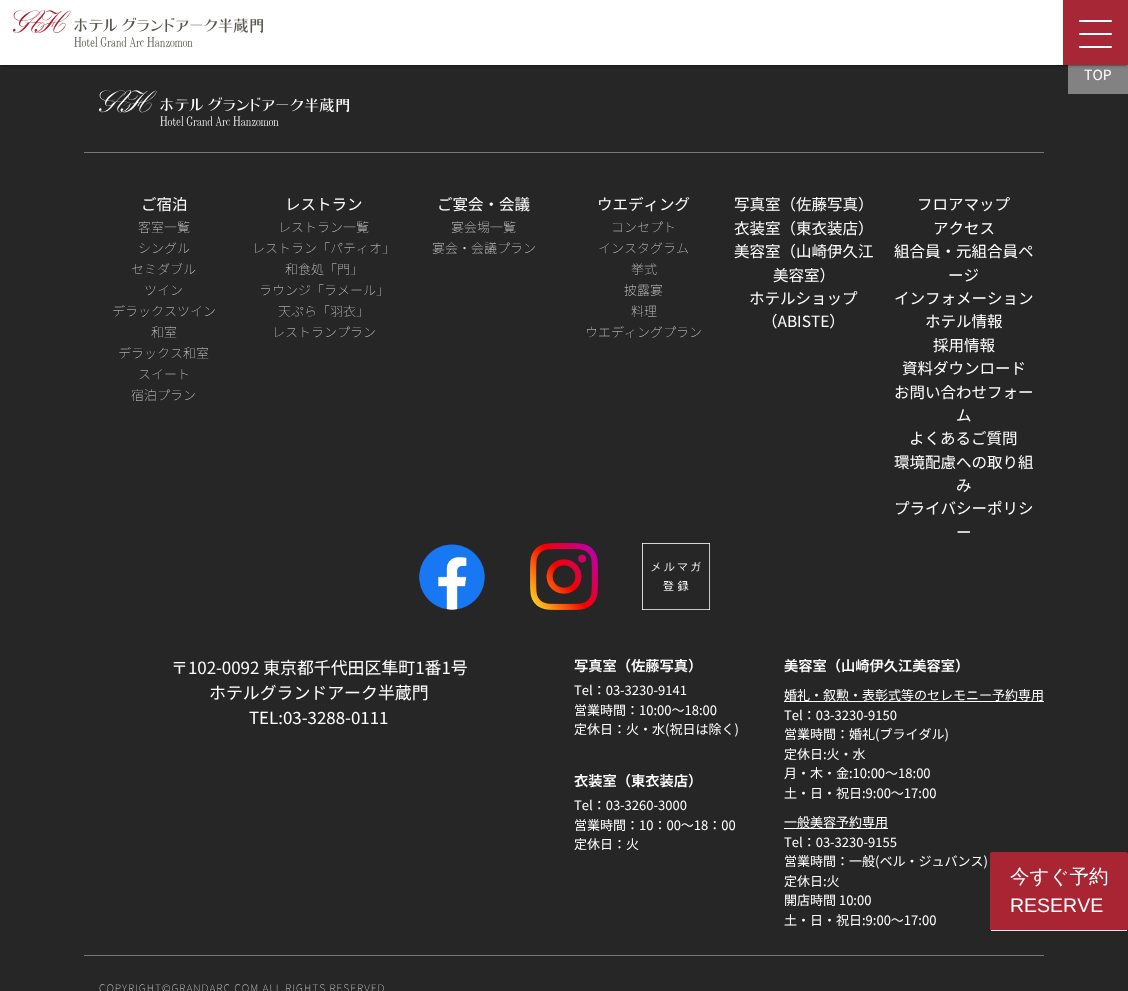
<svg xmlns="http://www.w3.org/2000/svg" width="1128" height="991" viewBox="0 0 1128 991">
  <style>*{font-kerning:none!important;font-variant-ligatures:none!important}</style>
  <rect width="100%" height="100%" fill="rgb(38,38,38)"/>
  <rect x="1068" y="65" width="60" height="29" fill="rgb(130,130,130)"/>
  <rect x="2" y="5" width="1124" height="61" fill="rgba(0,0,0,0.2)" filter="blur(0.5px)"/>
  <rect x="0" y="2" width="1128" height="65" fill="rgba(0,0,0,0.14)" filter="blur(1px)"/>
  <rect x="0" y="0" width="1063" height="65" fill="rgb(255,255,255)"/>
  <image x="13" y="10" width="250" height="37" href="pic1.png"/>
  <rect x="1063" y="0" width="65" height="65" fill="rgb(168,39,54)"/>
  <rect x="1079" y="20" width="33" height="2" rx="1" fill="rgb(255,255,255)"/>
  <rect x="1079" y="33" width="33" height="2" rx="1" fill="rgb(255,255,255)"/>
  <rect x="1079" y="46" width="33" height="2" rx="1" fill="rgb(255,255,255)"/>
  <text x="1084" y="80" font-family="Noto Sans JP" font-size="14" fill="rgb(255,255,255)">TOP</text>
  <image x="99" y="90" width="250" height="36" href="pic2.png"/>
  <rect x="84" y="152" width="960" height="1" fill="rgb(119,119,119)"/>
  <rect x="84" y="955" width="960" height="1" fill="rgb(119,119,119)"/>
  <text x="141" y="210" font-family="Noto Sans JP" font-size="15.5" fill="rgb(255,255,255)">ご宿泊</text>
  <g font-family="Noto Sans JP" font-size="13" font-weight="100" fill="rgb(217,217,217)">
    <text>
      <tspan x="138" y="232">客室一覧</tspan>
      <tspan x="138" y="253">シングル</tspan>
    </text>
    <text x="131" y="274">セミダブル</text>
    <text x="144" y="295">ツイン</text>
    <text x="112" y="316">デラックスツイン</text>
    <text x="151" y="337">和室</text>
    <text x="118" y="358">デラックス和室</text>
    <text x="138" y="379">スイート</text>
    <text x="131" y="400">宿泊プラン</text>
  </g>
  <text x="285" y="210" font-family="Noto Sans JP" font-size="15.5" fill="rgb(255,255,255)">レストラン</text>
  <g font-family="Noto Sans JP" font-size="13" font-weight="100" fill="rgb(217,217,217)">
    <text x="278" y="232">レストラン一覧</text>
    <text x="252" y="253">レストラン「パティオ」</text>
    <text x="285" y="274">和食処「門」</text>
    <text x="259" y="295">ラウンジ「ラメール」</text>
    <text x="278" y="316">天ぷら「羽衣」</text>
    <text x="272" y="337">レストランプラン</text>
  </g>
  <text x="437" y="210" font-family="Noto Sans JP" font-size="15.5" fill="rgb(255,255,255)">ご宴会・会議</text>
  <g font-family="Noto Sans JP" font-size="13" font-weight="100" fill="rgb(217,217,217)">
    <text x="451" y="232">宴会場一覧</text>
    <text x="432" y="253">宴会・会議プラン</text>
  </g>
  <text x="597" y="210" font-family="Noto Sans JP" font-size="15.5" fill="rgb(255,255,255)">ウエディング</text>
  <g font-family="Noto Sans JP" font-size="13" font-weight="100" fill="rgb(217,217,217)">
    <text x="611" y="232">コンセプト</text>
    <text x="598" y="253">インスタグラム</text>
    <text x="631" y="274">挙式</text>
    <text x="624" y="295">披露宴</text>
    <text x="631" y="316">料理</text>
    <text x="585" y="337">ウエディングプラン</text>
  </g>
  <g font-family="Noto Sans JP" font-size="15.5" fill="rgb(255,255,255)">
    <text>
      <tspan x="734" y="210">写真室（佐藤写真）</tspan>
      <tspan x="734" y="234">衣装室（東衣装店）</tspan>
      <tspan x="734" y="257">美容室（山崎伊久江</tspan>
    </text>
    <text x="773" y="281">美容室）</text>
    <text x="749" y="304">ホテルショップ</text>
    <text x="762" y="327">（ABISTE）</text>
    <text x="917" y="210">フロアマップ</text>
    <text x="933" y="234">アクセス</text>
    <text x="894" y="257">組合員・元組合員ペ</text>
    <text x="948" y="281">ージ</text>
    <text x="894" y="304">インフォメーション</text>
    <text x="925" y="327">ホテル情報</text>
    <text x="933" y="351">採用情報</text>
    <text x="902" y="374">資料ダウンロード</text>
    <text x="894" y="398">お問い合わせフォー</text>
    <text x="956" y="421">ム</text>
    <text x="909" y="444">よくあるご質問</text>
    <text x="894" y="468">環境配慮への取り組</text>
    <text x="956" y="491">み</text>
    <text x="894" y="514">プライバシーポリシ</text>
    <text x="956" y="538">ー</text>
  </g>
  <image x="419" y="544" width="66" height="66" href="pic3.png"/>
  <image x="530" y="543" width="68" height="67" href="pic4.png"/>
  <image x="642" y="543" width="68" height="67" href="pic5.png"/>
  <g font-family="Noto Sans JP" font-size="16.9" fill="rgb(255,255,255)">
    <text x="171" y="674">〒102-0092 東京都千代田区隼町1番1号</text>
    <text x="209" y="699">ホテルグランドアーク半蔵門</text>
    <text x="249" y="724">TEL:03-3288-0111</text>
  </g>
  <text x="574" y="671" font-family="Noto Sans JP" font-size="14.25" font-weight="600" fill="rgb(255,255,255)">写真室（佐藤写真）</text>
  <g font-family="Noto Sans JP" font-size="13" fill="rgb(255,255,255)">
    <text>
      <tspan x="574" y="695">Tel：03-3230-9141</tspan>
      <tspan x="574" y="715">営業時間：10:00～18:00</tspan>
      <tspan x="574" y="734">定休日：火・水(祝日は除く)</tspan>
    </text>
  </g>
  <text x="574" y="786" font-family="Noto Sans JP" font-size="14.25" font-weight="600" fill="rgb(255,255,255)">衣装室（東衣装店）</text>
  <g font-family="Noto Sans JP" font-size="13" fill="rgb(255,255,255)">
    <text>
      <tspan x="574" y="810">Tel：03-3260-3000</tspan>
      <tspan x="574" y="830">営業時間：10：00～18：00</tspan>
      <tspan x="574" y="849">定休日：火</tspan>
    </text>
  </g>
  <text x="784" y="671" font-family="Noto Sans JP" font-size="14.25" font-weight="600" fill="rgb(255,255,255)">美容室（山崎伊久江美容室）</text>
  <rect x="784" y="701" width="260" height="1" fill="rgb(255,255,255)"/>
  <g font-family="Noto Sans JP" font-size="13" fill="rgb(255,255,255)">
    <text>
      <tspan x="784" y="700">婚礼・叙勲・表彰式等のセレモニー予約専用</tspan>
      <tspan x="784" y="720">Tel：03-3230-9150</tspan>
      <tspan x="784" y="739">営業時間：婚礼(ブライダル)</tspan>
      <tspan x="784" y="759">定休日:火・水</tspan>
      <tspan x="784" y="778">月・木・金:10:00〜18:00</tspan>
      <tspan x="784" y="798">土・日・祝日:9:00〜17:00</tspan>
    </text>
  </g>
  <rect x="784" y="828" width="104" height="1" fill="rgb(255,255,255)"/>
  <g font-family="Noto Sans JP" font-size="13" fill="rgb(255,255,255)">
    <text>
      <tspan x="784" y="827">一般美容予約専用</tspan>
      <tspan x="784" y="847">Tel：03-3230-9155</tspan>
      <tspan x="784" y="866">営業時間：一般(ベル・ジュバンス)</tspan>
      <tspan x="784" y="886">定休日:火</tspan>
      <tspan x="784" y="905">開店時間 10:00</tspan>
      <tspan x="784" y="925">土・日・祝日:9:00〜17:00</tspan>
    </text>
  </g>
  <text x="99" y="992" font-family="Noto Sans JP" font-size="10.4" font-weight="100" letter-spacing="1" fill="rgb(217,217,217)">COPYRIGHT©GRANDARC.COM ALL RIGHTS RESERVED</text>
  <rect x="990" y="852" width="138" height="79" rx="2" fill="rgb(170,37,51)"/>
  <rect x="991" y="930" width="136" height="1" fill="rgb(233,233,233)"/>
  <text x="1010" y="883" font-family="WenQuanYi Zen Hei" font-size="19.5" font-weight="500" fill="rgb(255,255,255)">今すぐ予約</text>
  <text x="1010" y="912" font-family="Liberation Sans" font-size="19.5" fill="rgb(255,255,255)">RESERVE</text>
</svg>
